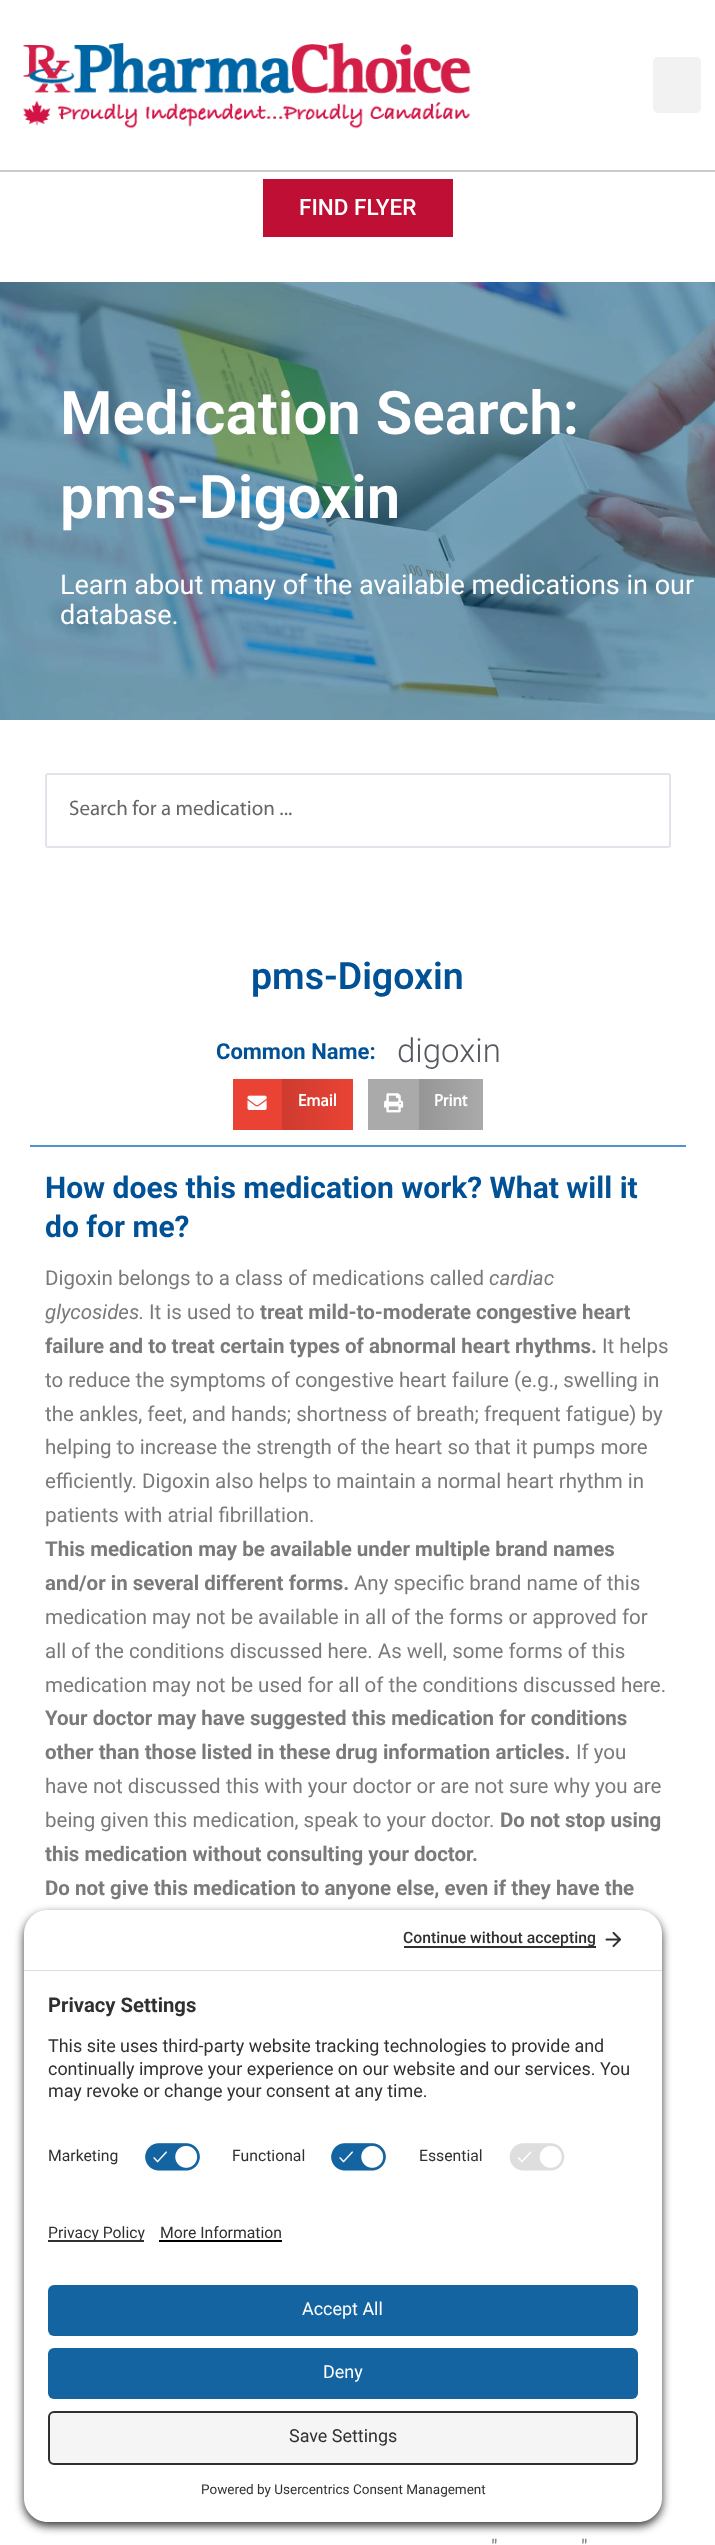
<svg xmlns="http://www.w3.org/2000/svg" width="715" height="2545" viewBox="0 0 715 2545">
  <defs>
    <linearGradient id="g1" gradientUnits="userSpaceOnUse" x1="282" y1="1104" x2="353" y2="1104"><stop offset="0" stop-color="rgb(206,59,47)"/><stop offset="1" stop-color="rgb(234,67,53)"/></linearGradient>
    <linearGradient id="g2" gradientUnits="userSpaceOnUse" x1="419" y1="1104" x2="483" y2="1104"><stop offset="0" stop-color="rgb(150,150,150)"/><stop offset="1" stop-color="rgb(170,170,170)"/></linearGradient>
  </defs>
  <rect width="100%" height="100%" fill="rgb(255,255,255)"/>
  <image x="23" y="42" width="448" height="87" href="pic1.png"/>
  <rect x="653" y="57" width="48" height="56" rx="5" fill="rgb(242,242,242)"/>
  <rect x="0" y="170" width="715" height="2" fill="rgb(203,203,203)"/>
  <rect x="263" y="179" width="190" height="58" fill="rgb(191,15,53)"/>
  <text x="299" y="215" font-family="Roboto" font-size="22.5" font-weight="500" fill="rgb(255,255,255)">FIND FLYER</text>
  <image x="0" y="282" width="715" height="438" href="pic2.png"/>
  <g font-family="Roboto" font-size="60" font-weight="600" fill="rgb(255,255,255)">
    <text>
      <tspan x="60" y="434">Medication Search:</tspan>
      <tspan x="60" y="518">pms-Digoxin</tspan>
    </text>
  </g>
  <g font-family="Roboto" font-size="27" fill="rgb(255,255,255)">
    <text>
      <tspan x="60" y="594">Learn about many of the available medications in our</tspan>
      <tspan x="60" y="624">database.</tspan>
    </text>
  </g>
  <rect x="46" y="774" width="624" height="73" rx="2" fill="none" stroke="rgb(225,229,235)" stroke-width="2"/>
  <text x="69" y="815" font-family="Myriad" font-size="21" fill="rgb(102,102,102)">Search for a medication ...</text>
  <rect x="30" y="1145" width="656" height="2" fill="rgb(84,146,207)"/>
  <text x="251" y="989" font-family="Roboto" font-size="37.5" font-weight="600" fill="rgb(0,81,149)">pms-Digoxin</text>
  <text x="216" y="1059" font-family="Roboto" font-size="22" font-weight="bold" fill="rgb(0,81,149)">Common Name:</text>
  <text x="397" y="1062" font-family="Roboto" font-size="33" font-weight="300" fill="rgb(84,89,95)">digoxin</text>
  <rect x="233" y="1079" width="49" height="51" fill="rgb(234,67,53)"/>
  <image x="247" y="1095" width="20" height="15" href="pic3.png"/>
  <rect x="282" y="1079" width="71" height="51" fill="url(#g1)"/>
  <text x="298" y="1106" font-family="Myriad" font-size="17" font-weight="bold" fill="rgb(255,255,255)">Email</text>
  <rect x="368" y="1079" width="51" height="51" fill="rgb(170,170,170)"/>
  <image x="384" y="1093" width="20" height="20" href="pic4.png"/>
  <rect x="419" y="1079" width="64" height="51" fill="url(#g2)"/>
  <text x="434" y="1106" font-family="Myriad" font-size="17" font-weight="bold" fill="rgb(255,255,255)">Print</text>
  <g font-family="Roboto" font-size="30" font-weight="bold" fill="rgb(0,81,149)">
    <text>
      <tspan x="45" y="1198">How does this medication work? What will it</tspan>
      <tspan x="45" y="1237">do for me?</tspan>
    </text>
  </g>
  <text x="45" y="1285" font-family="Roboto" font-size="20.5" fill="rgb(122,122,122)">Digoxin belongs to a class of medications called</text>
  <g font-family="Roboto" font-size="20.5" font-style="italic" fill="rgb(122,122,122)">
    <text x="489" y="1285">cardiac</text>
    <text x="45" y="1319">glycosides.</text>
  </g>
  <text x="149" y="1319" font-family="Roboto" font-size="20.5" fill="rgb(122,122,122)">It is used to</text>
  <g font-family="Roboto" font-size="20.5" font-weight="bold" fill="rgb(122,122,122)">
    <text x="260" y="1319">treat mild-to-moderate congestive heart</text>
    <text x="45" y="1353">failure and to treat certain types of abnormal heart rhythms.</text>
  </g>
  <g font-family="Roboto" font-size="20.5" fill="rgb(122,122,122)">
    <text x="602" y="1353">It helps</text>
    <text>
      <tspan x="45" y="1387">to reduce the symptoms of congestive heart failure (e.g., swelling in</tspan>
      <tspan x="45" y="1421">the ankles, feet, and hands; shortness of breath; frequent fatigue) by</tspan>
      <tspan x="45" y="1454">helping to increase the strength of the heart so that it pumps more</tspan>
      <tspan x="45" y="1488">efficiently. Digoxin also helps to maintain a normal heart rhythm in</tspan>
      <tspan x="45" y="1522">patients with atrial fibrillation.</tspan>
    </text>
  </g>
  <g font-family="Roboto" font-size="20.5" font-weight="bold" fill="rgb(122,122,122)">
    <text>
      <tspan x="45" y="1556">This medication may be available under multiple brand names</tspan>
      <tspan x="45" y="1590">and/or in several different forms.</tspan>
    </text>
  </g>
  <g font-family="Roboto" font-size="20.5" fill="rgb(122,122,122)">
    <text x="354" y="1590">Any specific brand name of this</text>
    <text>
      <tspan x="45" y="1624">medication may not be available in all of the forms or approved for</tspan>
      <tspan x="45" y="1658">all of the conditions discussed here. As well, some forms of this</tspan>
      <tspan x="45" y="1692">medication may not be used for all of the conditions discussed here.</tspan>
    </text>
  </g>
  <g font-family="Roboto" font-size="20.5" font-weight="bold" fill="rgb(122,122,122)">
    <text>
      <tspan x="45" y="1725">Your doctor may have suggested this medication for conditions</tspan>
      <tspan x="45" y="1759">other than those listed in these drug information articles.</tspan>
    </text>
  </g>
  <g font-family="Roboto" font-size="20.5" fill="rgb(122,122,122)">
    <text x="576" y="1759">If you</text>
    <text>
      <tspan x="45" y="1793">have not discussed this with your doctor or are not sure why you are</tspan>
      <tspan x="45" y="1827">being given this medication, speak to your doctor.</tspan>
    </text>
  </g>
  <g font-family="Roboto" font-size="20.5" font-weight="bold" fill="rgb(122,122,122)">
    <text x="500" y="1827">Do not stop using</text>
    <text>
      <tspan x="45" y="1861">this medication without consulting your doctor.</tspan>
      <tspan x="45" y="1895">Do not give this medication to anyone else, even if they have the</tspan>
    </text>
  </g>
  <g font-family="Roboto" font-size="20.5" fill="rgb(122,122,122)">
    <text x="491" y="2554">"</text>
    <text x="581" y="2554">"</text>
  </g>
  <rect x="24" y="1914" width="638" height="612" rx="24" fill="rgba(0,0,0,0.8)" filter="blur(5px)"/>
  <path d="M48 1910H638C651.5 1910 662 1920.5 662 1934V1971H24V1934C24 1920.5 34.5 1910 48 1910Z" fill="rgb(255,255,255)"/>
  <rect x="24" y="1970" width="638" height="1" fill="rgb(222,222,222)"/>
  <rect x="404" y="1946" width="192" height="2" fill="rgb(48,48,48)"/>
  <text x="403" y="1943" font-family="Roboto" font-size="15.75" font-weight="500" fill="rgb(48,48,48)">Continue without accepting</text>
  <image x="605" y="1931" width="17" height="17" href="pic5.png"/>
  <rect x="24" y="1971" width="638" height="228" fill="rgb(255,255,255)"/>
  <text x="48" y="2012" font-family="Roboto" font-size="20.25" font-weight="bold" fill="rgb(48,48,48)">Privacy Settings</text>
  <g font-family="Roboto" font-size="17.95" fill="rgb(48,48,48)">
    <text>
      <tspan x="48" y="2052">This site uses third-party website tracking technologies to provide and</tspan>
      <tspan x="48" y="2075">continually improve your experience on our website and our services. You</tspan>
      <tspan x="48" y="2097">may revoke or change your consent at any time.</tspan>
    </text>
  </g>
  <text x="48" y="2161" font-family="Roboto" font-size="15.75" fill="rgb(48,48,48)">Marketing</text>
  <image x="144" y="2142" width="57" height="30" href="pic6.png"/>
  <text x="232" y="2161" font-family="Roboto" font-size="15.75" fill="rgb(48,48,48)">Functional</text>
  <image x="330" y="2142" width="57" height="30" href="pic6.png"/>
  <text x="419" y="2161" font-family="Roboto" font-size="15.75" fill="rgb(48,48,48)">Essential</text>
  <image x="509" y="2143" width="56" height="28" href="pic7.png"/>
  <path d="M24 2199H662V2498C662 2511.5 651.5 2522 638 2522H48C34.5 2522 24 2511.5 24 2498Z" fill="rgb(255,255,255)"/>
  <rect x="48" y="2240" width="96" height="2" fill="rgb(48,48,48)"/>
  <g font-family="Roboto" font-size="15.75" fill="rgb(48,48,48)">
    <text x="48" y="2238">Privacy Policy</text>
    <text x="160" y="2238">More Information</text>
  </g>
  <rect x="159" y="2240" width="123" height="2" fill="rgb(0,0,0)"/>
  <rect x="48" y="2285" width="590" height="51" rx="6" fill="rgb(20,100,161)"/>
  <text x="302" y="2315" font-family="Roboto" font-size="17.95" fill="rgb(255,255,255)">Accept All</text>
  <rect x="48" y="2348" width="590" height="51" rx="6" fill="rgb(20,100,161)"/>
  <text x="323" y="2378" font-family="Roboto" font-size="17.95" fill="rgb(255,255,255)">Deny</text>
  <rect x="49" y="2412" width="588" height="52" rx="5" fill="rgb(245,245,245)" stroke="rgb(48,48,48)" stroke-width="2"/>
  <text x="289" y="2442" font-family="Roboto" font-size="17.95" fill="rgb(48,48,48)">Save Settings</text>
  <text x="201" y="2494" font-family="Roboto" font-size="13.5" fill="rgb(48,48,48)">Powered by Usercentrics Consent Management</text>
</svg>
